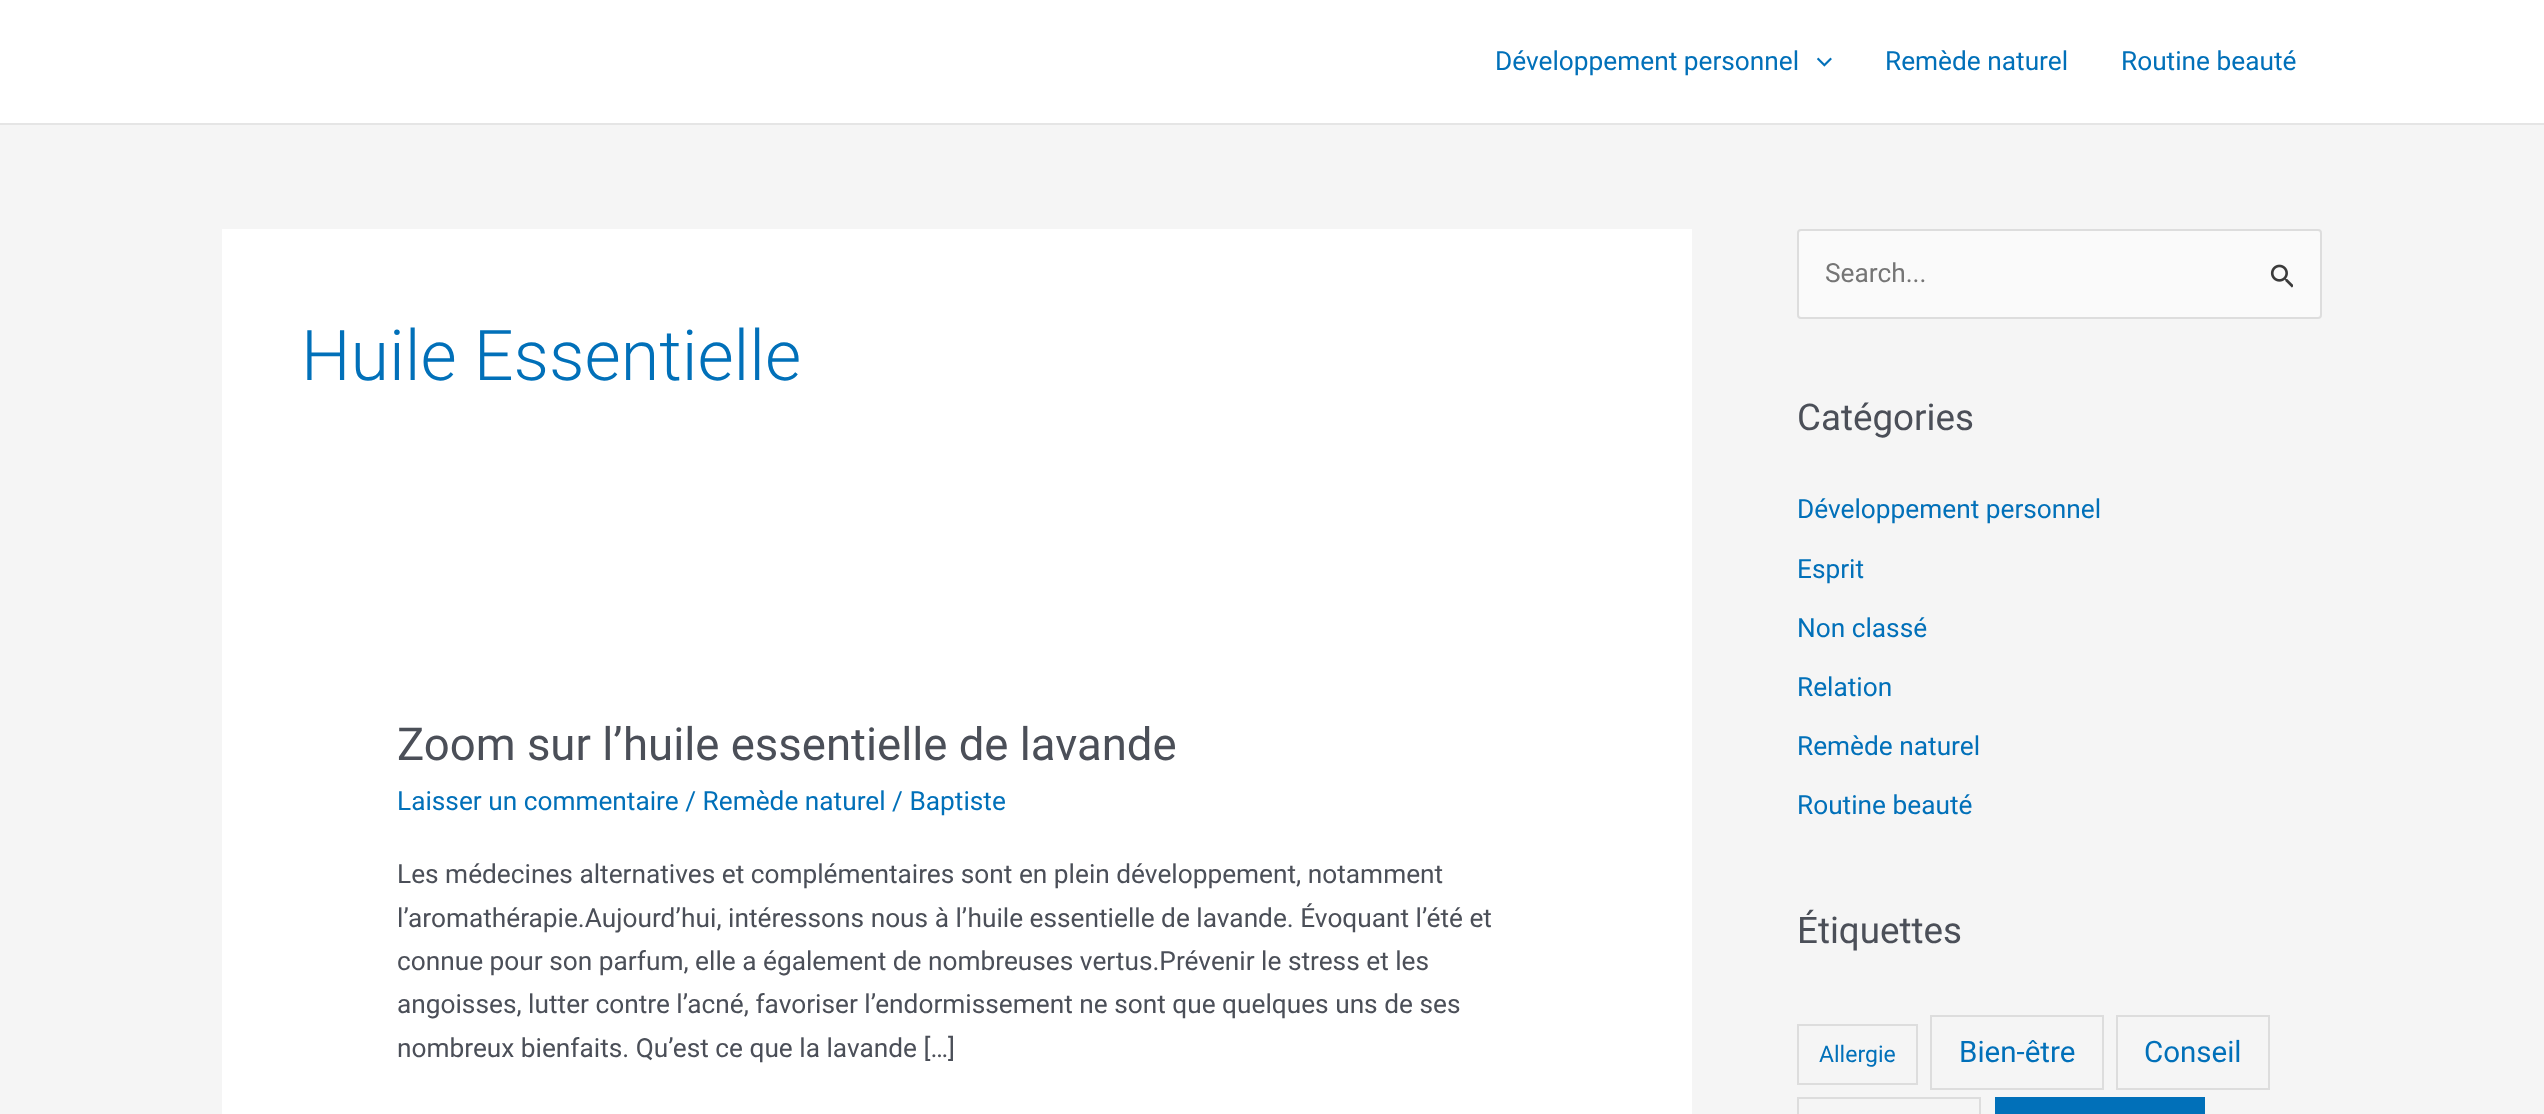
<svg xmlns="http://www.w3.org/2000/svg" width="2544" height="1114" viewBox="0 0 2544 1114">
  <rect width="100%" height="100%" fill="rgb(245,245,245)"/>
  <rect x="0" y="0" width="2544" height="123" fill="rgb(255,255,255)"/>
  <rect x="0" y="123" width="2544" height="2" fill="rgb(229,229,229)"/>
  <text x="1495" y="70" font-family="Roboto" font-size="26.25" fill="rgb(1,112,185)">Développement personnel</text>
  <image x="1817" y="57" width="15" height="10" href="pic1.png"/>
  <g font-family="Roboto" font-size="26.25" fill="rgb(1,112,185)">
    <text x="1885" y="70">Remède naturel</text>
    <text x="2121" y="70">Routine beauté</text>
  </g>
  <rect x="222" y="229" width="1470" height="885" fill="rgb(255,255,255)"/>
  <text x="301" y="380" font-family="Roboto" font-size="70" font-weight="300" fill="rgb(1,112,185)">Huile Essentielle</text>
  <text x="397" y="760" font-family="Roboto" font-size="45.5" fill="rgb(75,79,88)">Zoom sur l’huile essentielle de lavande</text>
  <text x="397" y="810" font-family="Roboto" font-size="26.25" fill="rgb(1,112,185)">Laisser un commentaire / Remède naturel / Baptiste</text>
  <g font-family="Roboto" font-size="26.25" fill="rgb(75,79,88)">
    <text>
      <tspan x="397" y="883">Les médecines alternatives et complémentaires sont en plein développement, notamment</tspan>
      <tspan x="397" y="927">l’aromathérapie.Aujourd’hui, intéressons nous à l’huile essentielle de lavande. Évoquant l’été et</tspan>
      <tspan x="397" y="970">connue pour son parfum, elle a également de nombreuses vertus.Prévenir le stress et les</tspan>
      <tspan x="397" y="1013">angoisses, lutter contre l’acné, favoriser l’endormissement ne sont que quelques uns de ses</tspan>
      <tspan x="397" y="1057">nombreux bienfaits. Qu’est ce que la lavande […]</tspan>
    </text>
  </g>
  <rect x="1798" y="230" width="523" height="88" rx="3" fill="rgb(250,250,250)" stroke="rgb(221,221,221)" stroke-width="2"/>
  <text x="1825" y="282" font-family="Roboto" font-size="26.25" fill="rgb(117,117,117)">Search...</text>
  <image x="2270" y="264" width="23" height="24" href="pic2.png"/>
  <text x="1797" y="430" font-family="Roboto" font-size="36.75" fill="rgb(75,79,88)">Catégories</text>
  <g font-family="Roboto" font-size="26.25" fill="rgb(1,112,185)">
    <text x="1797" y="518">Développement personnel</text>
    <text x="1797" y="578">Esprit</text>
    <text x="1797" y="637">Non classé</text>
    <text x="1797" y="696">Relation</text>
    <text x="1797" y="755">Remède naturel</text>
    <text x="1797" y="814">Routine beauté</text>
  </g>
  <text x="1797" y="943" font-family="Roboto" font-size="36.75" fill="rgb(75,79,88)">Étiquettes</text>
  <rect x="1798" y="1025" width="119" height="59" fill="none" stroke="rgb(221,221,221)" stroke-width="2"/>
  <text x="1819" y="1062" font-family="Roboto" font-size="23" fill="rgb(1,112,185)">Allergie</text>
  <rect x="1931" y="1016" width="172" height="73" fill="none" stroke="rgb(221,221,221)" stroke-width="2"/>
  <text x="1959" y="1062" font-family="Roboto" font-size="29.5" fill="rgb(1,112,185)">Bien-être</text>
  <rect x="2117" y="1016" width="152" height="73" fill="none" stroke="rgb(221,221,221)" stroke-width="2"/>
  <text x="2144" y="1062" font-family="Roboto" font-size="29.5" fill="rgb(1,112,185)">Conseil</text>
  <rect x="1798" y="1098" width="182" height="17" fill="none" stroke="rgb(221,221,221)" stroke-width="2"/>
  <rect x="1995" y="1097" width="210" height="17" fill="rgb(1,112,185)"/>
</svg>
